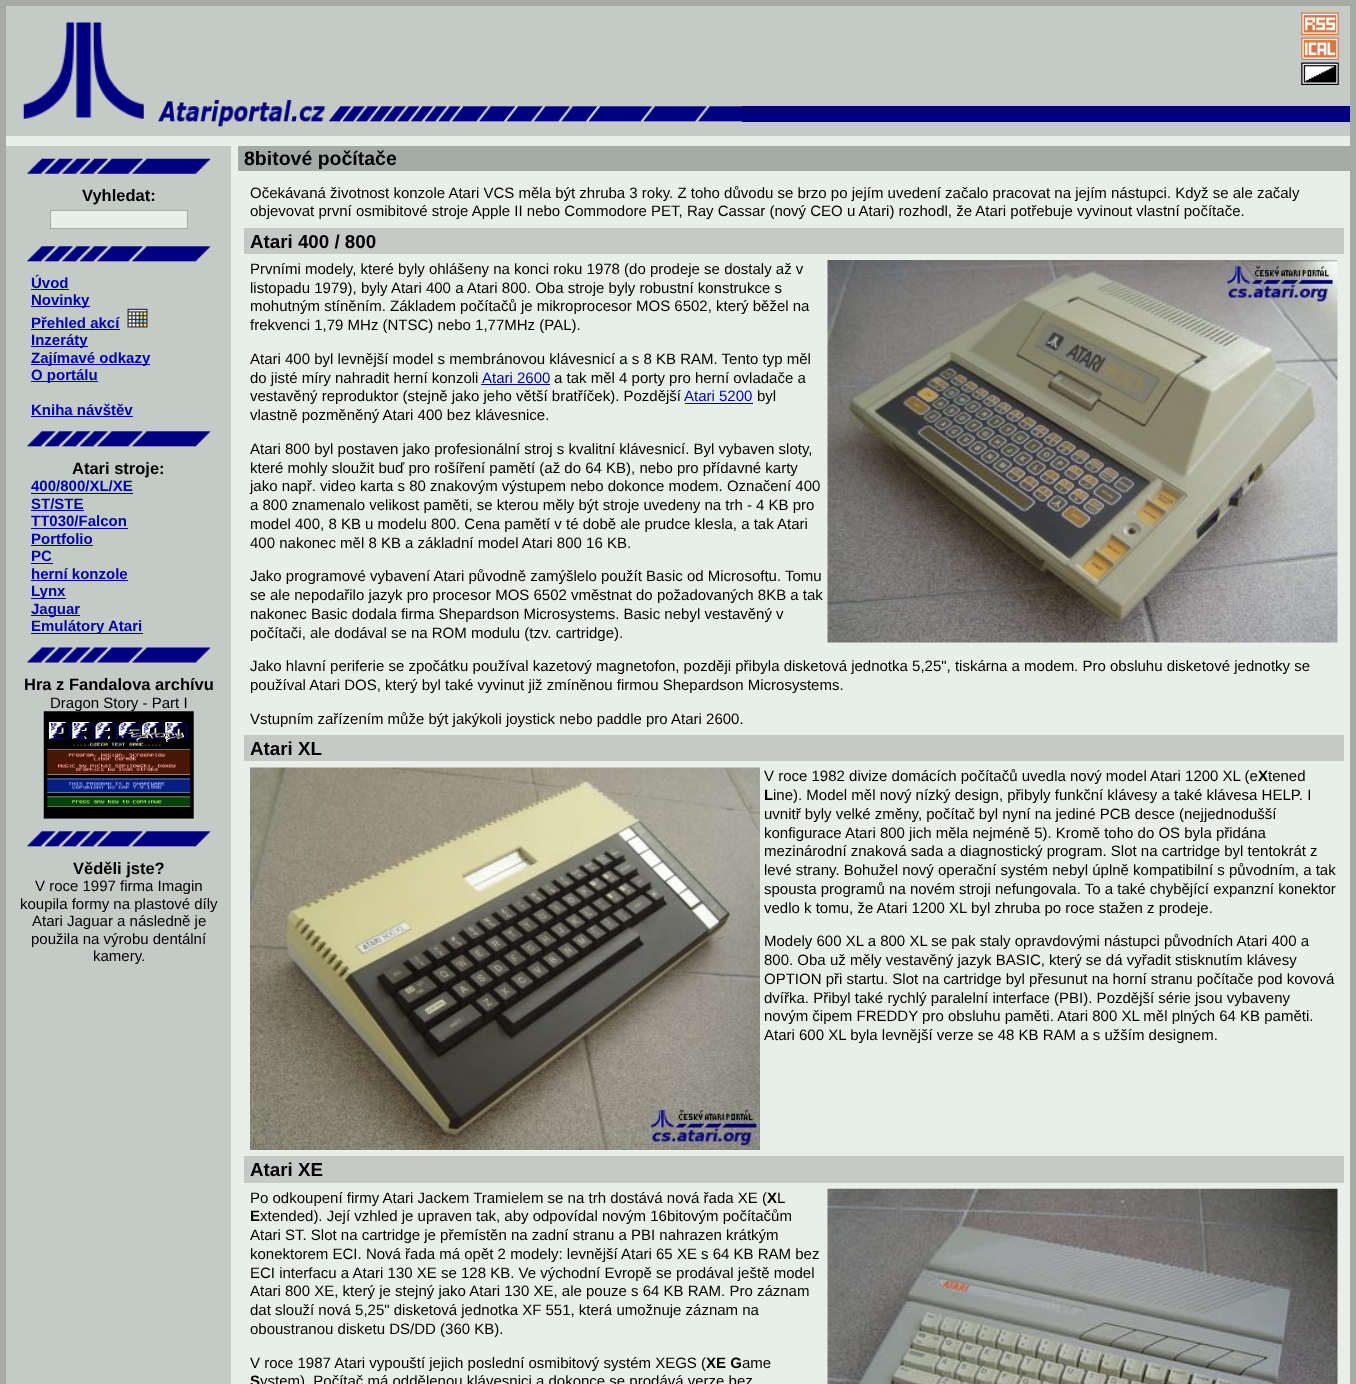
<svg xmlns="http://www.w3.org/2000/svg" width="1356" height="1384" viewBox="0 0 1356 1384">
  <rect width="100%" height="100%" fill="rgb(166,171,167)"/>
  <rect x="6" y="6" width="150" height="130" fill="rgb(196,202,197)"/>
  <image x="23" y="22" width="121" height="97" href="pic1.png"/>
  <rect x="156" y="6" width="1194" height="80" fill="rgb(196,202,197)"/>
  <image x="1301" y="12" width="38" height="23" href="pic2.png"/>
  <image x="1301" y="37" width="38" height="23" href="pic3.png"/>
  <image x="1301" y="62" width="38" height="23" href="pic4.png"/>
  <rect x="156" y="86" width="1194" height="50" fill="rgb(196,202,197)"/>
  <image x="158" y="99" width="584" height="28" href="pic5.png"/>
  <rect x="742" y="106" width="608" height="16" fill="rgb(0,0,128)"/>
  <rect x="6" y="136" width="1344" height="10" fill="rgb(232,239,233)"/>
  <rect x="231" y="146" width="1119" height="1238" fill="rgb(232,239,233)"/>
  <rect x="6" y="146" width="225" height="1238" fill="rgb(196,202,197)"/>
  <image x="27" y="158" width="184" height="16" href="pic6.png"/>
  <text x="82" y="201" font-family="Liberation Sans" font-size="16.5" font-weight="bold" fill="rgb(0,0,0)">Vyhledat:</text>
  <rect x="50.5" y="210.5" width="137" height="18" fill="rgb(232,239,233)" stroke="rgb(166,171,167)"/>
  <image x="27" y="246" width="184" height="16" href="pic7.png"/>
  <text x="31" y="288" font-family="Liberation Sans" font-size="15" font-weight="bold" fill="rgb(0,0,176)">Úvod</text>
  <rect x="31" y="289" width="38" height="1" fill="rgb(0,0,176)"/>
  <rect x="31" y="306" width="59" height="1" fill="rgb(0,0,176)"/>
  <g font-family="Liberation Sans" font-size="15" font-weight="bold" fill="rgb(0,0,176)">
    <text>
      <tspan x="31" y="305">Novinky</tspan>
      <tspan x="31" y="328">Přehled akcí</tspan>
    </text>
  </g>
  <rect x="31" y="329" width="89" height="1" fill="rgb(0,0,176)"/>
  <image x="127" y="308" width="21" height="20" href="pic8.png"/>
  <rect x="31" y="346" width="57" height="1" fill="rgb(0,0,176)"/>
  <text x="31" y="345" font-family="Liberation Sans" font-size="15" font-weight="bold" fill="rgb(0,0,176)">Inzeráty</text>
  <rect x="31" y="364" width="119" height="1" fill="rgb(0,0,176)"/>
  <text x="31" y="363" font-family="Liberation Sans" font-size="15" font-weight="bold" fill="rgb(0,0,176)">Zajímavé odkazy</text>
  <rect x="31" y="381" width="67" height="1" fill="rgb(0,0,176)"/>
  <g font-family="Liberation Sans" font-size="15" font-weight="bold" fill="rgb(0,0,176)">
    <text x="31" y="380">O portálu</text>
    <text x="31" y="415">Kniha návštěv</text>
  </g>
  <rect x="31" y="416" width="102" height="1" fill="rgb(0,0,176)"/>
  <image x="27" y="431" width="184" height="16" href="pic7.png"/>
  <text x="72" y="474" font-family="Liberation Sans" font-size="16.5" font-weight="bold" fill="rgb(0,0,0)">Atari stroje:</text>
  <text x="31" y="491" font-family="Liberation Sans" font-size="15" font-weight="bold" fill="rgb(0,0,176)">400/800/XL/XE</text>
  <rect x="31" y="493" width="102" height="1" fill="rgb(0,0,176)"/>
  <text x="31" y="509" font-family="Liberation Sans" font-size="15" font-weight="bold" fill="rgb(0,0,176)">ST/STE</text>
  <rect x="31" y="510" width="53" height="1" fill="rgb(0,0,176)"/>
  <text x="31" y="526" font-family="Liberation Sans" font-size="15" font-weight="bold" fill="rgb(0,0,176)">TT030/Falcon</text>
  <rect x="31" y="528" width="97" height="1" fill="rgb(0,0,176)"/>
  <text x="31" y="544" font-family="Liberation Sans" font-size="15" font-weight="bold" fill="rgb(0,0,176)">Portfolio</text>
  <rect x="31" y="545" width="62" height="1" fill="rgb(0,0,176)"/>
  <text x="31" y="561" font-family="Liberation Sans" font-size="15" font-weight="bold" fill="rgb(0,0,176)">PC</text>
  <rect x="31" y="563" width="22" height="1" fill="rgb(0,0,176)"/>
  <text x="31" y="579" font-family="Liberation Sans" font-size="15" font-weight="bold" fill="rgb(0,0,176)">herní konzole</text>
  <rect x="31" y="580" width="97" height="1" fill="rgb(0,0,176)"/>
  <rect x="31" y="598" width="35" height="1" fill="rgb(0,0,176)"/>
  <text x="31" y="596" font-family="Liberation Sans" font-size="15" font-weight="bold" fill="rgb(0,0,176)">Lynx</text>
  <rect x="31" y="615" width="49" height="1" fill="rgb(0,0,176)"/>
  <text x="31" y="614" font-family="Liberation Sans" font-size="15" font-weight="bold" fill="rgb(0,0,176)">Jaguar</text>
  <rect x="31" y="633" width="112" height="1" fill="rgb(0,0,176)"/>
  <text x="31" y="631" font-family="Liberation Sans" font-size="15" font-weight="bold" fill="rgb(0,0,176)">Emulátory Atari</text>
  <image x="27" y="647" width="184" height="16" href="pic9.png"/>
  <text x="24" y="690" font-family="Liberation Sans" font-size="16.5" font-weight="bold" fill="rgb(0,0,0)">Hra z Fandalova archívu</text>
  <text x="50" y="708" font-family="Liberation Sans" font-size="15" fill="rgb(0,0,0)">Dragon Story - Part I</text>
  <image x="43" y="711" width="151" height="108" href="pic10.png"/>
  <image x="27" y="818" width="184" height="29" href="pic11.png"/>
  <text x="73" y="874" font-family="Liberation Sans" font-size="16.5" font-weight="bold" fill="rgb(0,0,0)">Věděli jste?</text>
  <g font-family="Liberation Sans" font-size="15" fill="rgb(0,0,0)">
    <text x="35" y="891">V roce 1997 firma Imagin</text>
    <text x="20" y="909">koupila formy na plastové díly</text>
    <text x="32" y="926">Atari Jaguar a následně je</text>
    <text x="31" y="944">použila na výrobu dentální</text>
    <text x="93" y="961">kamery.</text>
  </g>
  <rect x="238" y="146" width="1112" height="25" fill="rgb(163,171,167)"/>
  <text x="244" y="165" font-family="Liberation Sans" font-size="19.5" font-weight="bold" fill="rgb(0,0,0)">8bitové počítače</text>
  <g font-family="Liberation Sans" font-size="15" fill="rgb(0,0,0)">
    <text>
      <tspan x="250" y="198">Očekávaná životnost konzole Atari VCS měla být zhruba 3 roky. Z toho důvodu se brzo po jejím uvedení začalo pracovat na jejím nástupci. Když se ale začaly</tspan>
      <tspan x="250" y="216">objevovat první osmibitové stroje Apple II nebo Commodore PET, Ray Cassar (nový CEO u Atari) rozhodl, že Atari potřebuje vyvinout vlastní počítače.</tspan>
    </text>
  </g>
  <rect x="244" y="228" width="1100" height="26" fill="rgb(198,202,198)"/>
  <text x="250" y="248" font-family="Liberation Sans" font-size="18.75" font-weight="bold" fill="rgb(0,0,0)">Atari 400 / 800</text>
  <text x="250" y="274" font-family="Liberation Sans" font-size="15" fill="rgb(0,0,0)">Prvními modely, které byly ohlášeny na konci roku 1978 (do prodeje se dostaly až v</text>
  <image x="827" y="260" width="511" height="383" href="pic12.png"/>
  <g font-family="Liberation Sans" font-size="15" fill="rgb(0,0,0)">
    <text>
      <tspan x="250" y="293">listopadu 1979), byly Atari 400 a Atari 800. Oba stroje byly robustní konstrukce s</tspan>
      <tspan x="250" y="311">mohutným stíněním. Základem počítačů je mikroprocesor MOS 6502, který běžel na</tspan>
      <tspan x="250" y="330">frekvenci 1,79 MHz (NTSC) nebo 1,77MHz (PAL).</tspan>
    </text>
    <text>
      <tspan x="250" y="364">Atari 400 byl levnější model s membránovou klávesnicí a s 8 KB RAM. Tento typ měl</tspan>
      <tspan x="250" y="383">do jisté míry nahradit herní konzoli</tspan>
    </text>
  </g>
  <text x="482" y="383" font-family="Liberation Sans" font-size="15" fill="rgb(0,0,176)">Atari 2600</text>
  <rect x="481" y="384" width="69" height="1" fill="rgb(0,0,176)"/>
  <g font-family="Liberation Sans" font-size="15" fill="rgb(0,0,0)">
    <text x="554" y="383">a tak měl 4 porty pro herní ovladače a</text>
    <text x="250" y="401">vestavěný reproduktor (stejně jako jeho větší bratříček). Pozdější</text>
  </g>
  <text x="684" y="401" font-family="Liberation Sans" font-size="15" fill="rgb(0,0,176)">Atari 5200</text>
  <rect x="685" y="403" width="68" height="1" fill="rgb(0,0,176)"/>
  <g font-family="Liberation Sans" font-size="15" fill="rgb(0,0,0)">
    <text x="757" y="401">byl</text>
    <text x="250" y="420">vlastně pozměněný Atari 400 bez klávesnice.</text>
    <text>
      <tspan x="250" y="454">Atari 800 byl postaven jako profesionální stroj s kvalitní klávesnicí. Byl vybaven sloty,</tspan>
      <tspan x="250" y="473">které mohly sloužit buď pro rošíření pamětí (až do 64 KB), nebo pro přídavné karty</tspan>
      <tspan x="250" y="491">jako např. video karta s 80 znakovým výstupem nebo dokonce modem. Označení 400</tspan>
      <tspan x="250" y="510">a 800 znamenalo velikost paměti, se kterou měly být stroje uvedeny na trh - 4 KB pro</tspan>
      <tspan x="250" y="529">model 400, 8 KB u modelu 800. Cena pamětí v té době ale prudce klesla, a tak Atari</tspan>
      <tspan x="250" y="548">400 nakonec měl 8 KB a základní model Atari 800 16 KB.</tspan>
    </text>
    <text>
      <tspan x="250" y="581">Jako programové vybavení Atari původně zamýšlelo použít Basic od Microsoftu. Tomu</tspan>
      <tspan x="250" y="600">se ale nepodařilo jazyk pro procesor MOS 6502 vměstnat do požadovaných 8KB a tak</tspan>
      <tspan x="250" y="619">nakonec Basic dodala firma Shepardson Microsystems. Basic nebyl vestavěný v</tspan>
      <tspan x="250" y="638">počítači, ale dodával se na ROM modulu (tzv. cartridge).</tspan>
    </text>
    <text>
      <tspan x="250" y="671">Jako hlavní periferie se zpočátku používal kazetový magnetofon, později přibyla disketová jednotka 5,25", tiskárna a modem. Pro obsluhu disketové jednotky se</tspan>
      <tspan x="250" y="690">používal Atari DOS, který byl také vyvinut již zmíněnou firmou Shepardson Microsystems.</tspan>
    </text>
    <text x="250" y="724">Vstupním zařízením může být jakýkoli joystick nebo paddle pro Atari 2600.</text>
  </g>
  <rect x="244" y="735" width="1100" height="26" fill="rgb(198,202,198)"/>
  <text x="250" y="755" font-family="Liberation Sans" font-size="18.75" font-weight="bold" fill="rgb(0,0,0)">Atari XL</text>
  <image x="250" y="767" width="510" height="383" href="pic13.png"/>
  <text x="764" y="781" font-family="Liberation Sans" font-size="15" fill="rgb(0,0,0)">V roce 1982 divize domácích počítačů uvedla nový model Atari 1200 XL (e</text>
  <text x="1258" y="781" font-family="Liberation Sans" font-size="15" font-weight="bold" fill="rgb(0,0,0)">X</text>
  <text x="1268" y="781" font-family="Liberation Sans" font-size="15" fill="rgb(0,0,0)">tened</text>
  <text x="764" y="800" font-family="Liberation Sans" font-size="15" font-weight="bold" fill="rgb(0,0,0)">L</text>
  <g font-family="Liberation Sans" font-size="15" fill="rgb(0,0,0)">
    <text x="773" y="800">ine). Model měl nový nízký design, přibyly funkční klávesy a také klávesa HELP. I</text>
    <text>
      <tspan x="764" y="819">uvnitř byly velké změny, počítač byl nyní na jediné PCB desce (nejjednodušší</tspan>
      <tspan x="764" y="838">konfigurace Atari 800 jich měla nejméně 5). Kromě toho do OS byla přidána</tspan>
      <tspan x="764" y="856">mezinárodní znaková sada a diagnostický program. Slot na cartridge byl tentokrát z</tspan>
      <tspan x="764" y="875">levé strany. Bohužel nový operační systém nebyl úplně kompatibilní s původním, a tak</tspan>
      <tspan x="764" y="894">spousta programů na novém stroji nefungovala. To a také chybějící expanzní konektor</tspan>
      <tspan x="764" y="913">vedlo k tomu, že Atari 1200 XL byl zhruba po roce stažen z prodeje.</tspan>
    </text>
    <text>
      <tspan x="764" y="946">Modely 600 XL a 800 XL se pak staly opravdovými nástupci původních Atari 400 a</tspan>
      <tspan x="764" y="965">800. Oba už měly vestavěný jazyk BASIC, který se dá vyřadit stisknutím klávesy</tspan>
      <tspan x="764" y="984">OPTION při startu. Slot na cartridge byl přesunut na horní stranu počítače pod kovová</tspan>
      <tspan x="764" y="1003">dvířka. Přibyl také rychlý paralelní interface (PBI). Pozdější série jsou vybaveny</tspan>
      <tspan x="764" y="1021">novým čipem FREDDY pro obsluhu paměti. Atari 800 XL měl plných 64 KB paměti.</tspan>
      <tspan x="764" y="1040">Atari 600 XL byla levnější verze se 48 KB RAM a s užším designem.</tspan>
    </text>
  </g>
  <rect x="244" y="1156" width="1100" height="27" fill="rgb(198,202,198)"/>
  <text x="250" y="1176" font-family="Liberation Sans" font-size="18.75" font-weight="bold" fill="rgb(0,0,0)">Atari XE</text>
  <text x="250" y="1203" font-family="Liberation Sans" font-size="15" fill="rgb(0,0,0)">Po odkoupení firmy Atari Jackem Tramielem se na trh dostává nová řada XE (</text>
  <text x="767" y="1203" font-family="Liberation Sans" font-size="15" font-weight="bold" fill="rgb(0,0,0)">X</text>
  <text x="777" y="1203" font-family="Liberation Sans" font-size="15" fill="rgb(0,0,0)">L</text>
  <image x="827" y="1188" width="511" height="196" href="pic14.png"/>
  <text x="250" y="1221" font-family="Liberation Sans" font-size="15" font-weight="bold" fill="rgb(0,0,0)">E</text>
  <g font-family="Liberation Sans" font-size="15" fill="rgb(0,0,0)">
    <text x="260" y="1221">xtended). Její vzhled je upraven tak, aby odpovídal novým 16bitovým počítačům</text>
    <text>
      <tspan x="250" y="1240">Atari ST. Slot na cartridge je přemístěn na zadní stranu a PBI nahrazen krátkým</tspan>
      <tspan x="250" y="1259">konektorem ECI. Nová řada má opět 2 modely: levnější Atari 65 XE s 64 KB RAM bez</tspan>
      <tspan x="250" y="1278">ECI interfacu a Atari 130 XE se 128 KB. Ve východní Evropě se prodával ještě model</tspan>
      <tspan x="250" y="1296">Atari 800 XE, který je stejný jako Atari 130 XE, ale pouze s 64 KB RAM. Pro záznam</tspan>
      <tspan x="250" y="1315">dat slouží nová 5,25" disketová jednotka XF 551, která umožnuje záznam na</tspan>
      <tspan x="250" y="1334">oboustranou disketu DS/DD (360 KB).</tspan>
    </text>
    <text x="250" y="1368">V roce 1987 Atari vypouští jejich poslední osmibitový systém XEGS (</text>
  </g>
  <text x="706" y="1368" font-family="Liberation Sans" font-size="15" font-weight="bold" fill="rgb(0,0,0)">XE G</text>
  <text x="742" y="1368" font-family="Liberation Sans" font-size="15" fill="rgb(0,0,0)">ame</text>
  <text x="250" y="1386" font-family="Liberation Sans" font-size="15" font-weight="bold" fill="rgb(0,0,0)">S</text>
  <text x="260" y="1386" font-family="Liberation Sans" font-size="15" fill="rgb(0,0,0)">ystem). Počítač má oddělenou klávesnici a dokonce se prodává verze bez</text>
</svg>
